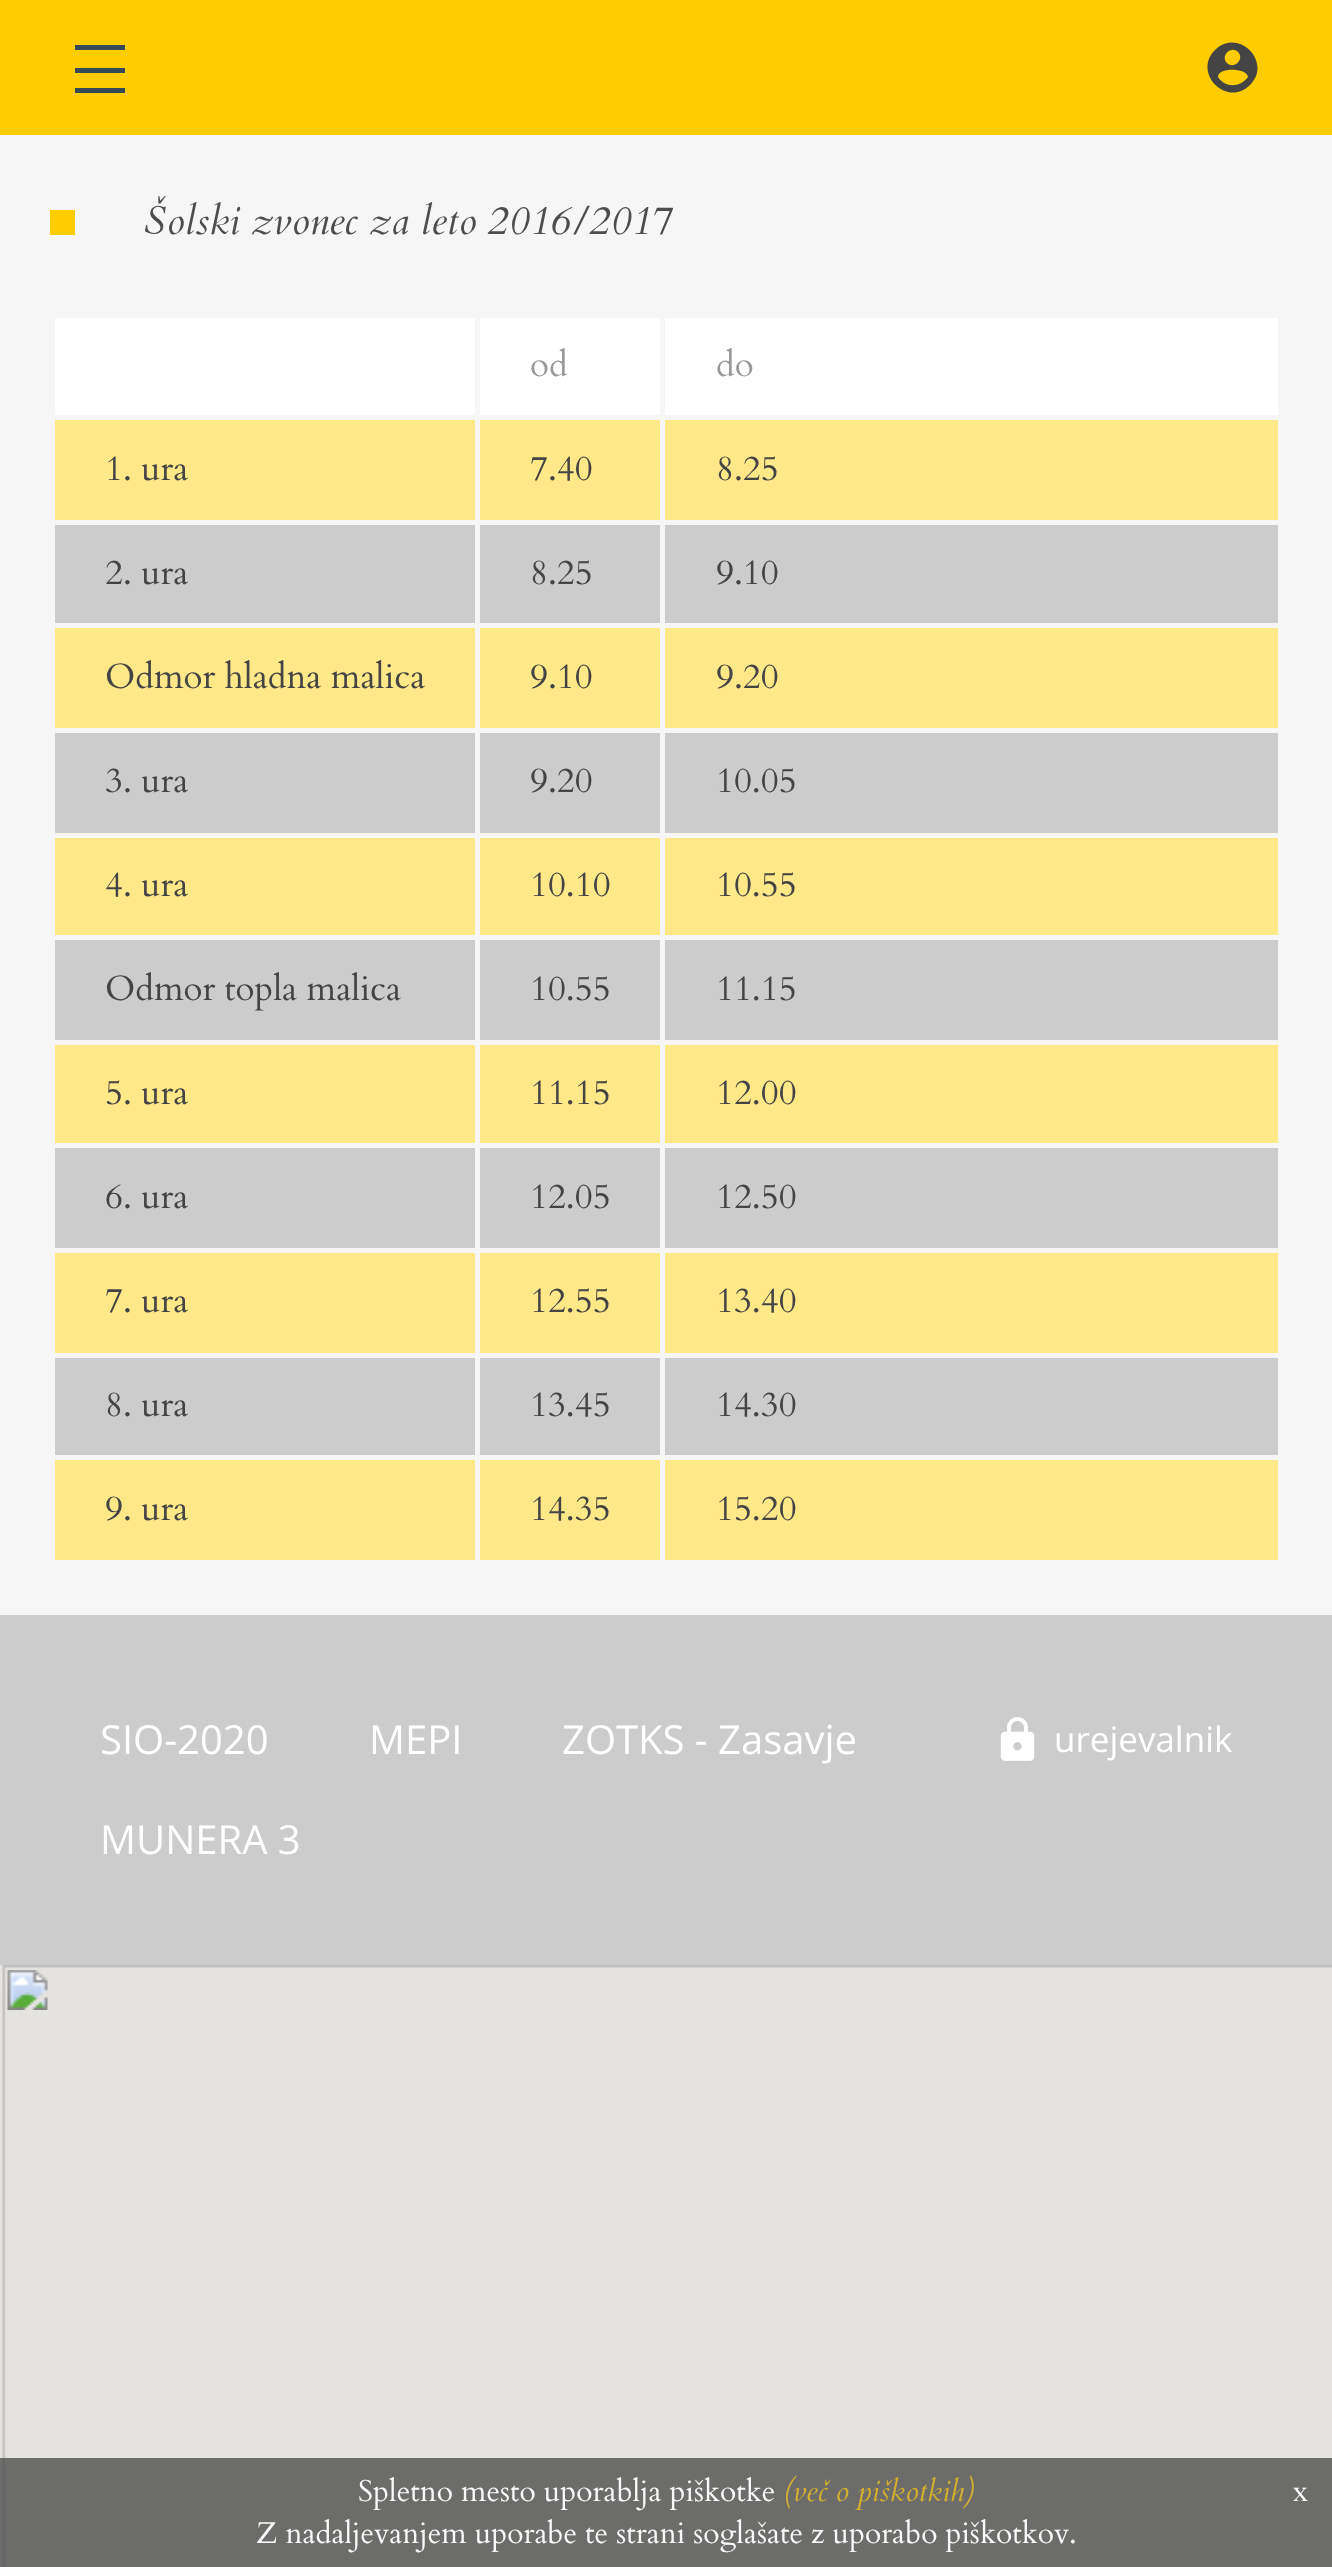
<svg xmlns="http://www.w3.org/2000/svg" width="1332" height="2567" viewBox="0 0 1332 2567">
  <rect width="100%" height="100%" fill="rgb(246,246,246)"/>
  <rect x="0" y="0" width="1332" height="135" fill="rgb(255,204,0)"/>
  <path d="M1218 77C1225 88 1240 88 1248 77C1247 68 1218 67 1218 77ZM1238 52C1231 45 1220 56 1227 63C1234 70 1245 59 1238 52ZM1215 50C1238 27 1273 62 1250 85C1227 108 1192 73 1215 50Z" fill="rgb(68,68,68)"/>
  <rect x="75" y="68" width="50" height="5" fill="rgb(54,74,86)"/>
  <rect x="75" y="45" width="50" height="5" fill="rgb(54,74,86)"/>
  <rect x="75" y="88" width="50" height="5" fill="rgb(54,74,86)"/>
  <rect x="50" y="210" width="25" height="25" fill="rgb(255,204,0)"/>
  <text x="144" y="234" font-family="Cardo" font-size="40" font-style="italic" fill="rgb(77,77,77)">Šolski zvonec za leto 2016/2017</text>
  <rect x="55" y="318" width="420" height="97" fill="rgb(255,255,255)"/>
  <rect x="480" y="318" width="180" height="97" fill="rgb(255,255,255)"/>
  <text x="530" y="376" font-family="Cardo" font-size="35" fill="rgb(153,153,153)">od</text>
  <rect x="665" y="318" width="613" height="97" fill="rgb(255,255,255)"/>
  <text x="716" y="376" font-family="Cardo" font-size="35" fill="rgb(153,153,153)">do</text>
  <rect x="55" y="420" width="420" height="100" fill="rgb(255,232,136)"/>
  <text x="105" y="480" font-family="Cardo" font-size="35" fill="rgb(68,68,68)">1. ura</text>
  <rect x="480" y="420" width="180" height="100" fill="rgb(255,232,136)"/>
  <text x="530" y="480" font-family="Cardo" font-size="35" fill="rgb(68,68,68)">7.40</text>
  <rect x="665" y="420" width="613" height="100" fill="rgb(255,232,136)"/>
  <text x="716" y="480" font-family="Cardo" font-size="35" fill="rgb(68,68,68)">8.25</text>
  <rect x="55" y="525" width="420" height="98" fill="rgb(204,204,204)"/>
  <text x="105" y="584" font-family="Cardo" font-size="35" fill="rgb(68,68,68)">2. ura</text>
  <rect x="480" y="525" width="180" height="98" fill="rgb(204,204,204)"/>
  <text x="530" y="584" font-family="Cardo" font-size="35" fill="rgb(68,68,68)">8.25</text>
  <rect x="665" y="525" width="613" height="98" fill="rgb(204,204,204)"/>
  <text x="716" y="584" font-family="Cardo" font-size="35" fill="rgb(68,68,68)">9.10</text>
  <rect x="55" y="628" width="420" height="100" fill="rgb(255,232,136)"/>
  <text x="105" y="688" font-family="Cardo" font-size="35" fill="rgb(68,68,68)">Odmor hladna malica</text>
  <rect x="480" y="628" width="180" height="100" fill="rgb(255,232,136)"/>
  <text x="530" y="688" font-family="Cardo" font-size="35" fill="rgb(68,68,68)">9.10</text>
  <rect x="665" y="628" width="613" height="100" fill="rgb(255,232,136)"/>
  <text x="716" y="688" font-family="Cardo" font-size="35" fill="rgb(68,68,68)">9.20</text>
  <rect x="55" y="733" width="420" height="100" fill="rgb(204,204,204)"/>
  <text x="105" y="792" font-family="Cardo" font-size="35" fill="rgb(68,68,68)">3. ura</text>
  <rect x="480" y="733" width="180" height="100" fill="rgb(204,204,204)"/>
  <text x="530" y="792" font-family="Cardo" font-size="35" fill="rgb(68,68,68)">9.20</text>
  <rect x="665" y="733" width="613" height="100" fill="rgb(204,204,204)"/>
  <text x="716" y="792" font-family="Cardo" font-size="35" fill="rgb(68,68,68)">10.05</text>
  <rect x="55" y="838" width="420" height="97" fill="rgb(255,232,136)"/>
  <text x="105" y="896" font-family="Cardo" font-size="35" fill="rgb(68,68,68)">4. ura</text>
  <rect x="480" y="838" width="180" height="97" fill="rgb(255,232,136)"/>
  <text x="530" y="896" font-family="Cardo" font-size="35" fill="rgb(68,68,68)">10.10</text>
  <rect x="665" y="838" width="613" height="97" fill="rgb(255,232,136)"/>
  <text x="716" y="896" font-family="Cardo" font-size="35" fill="rgb(68,68,68)">10.55</text>
  <rect x="55" y="940" width="420" height="100" fill="rgb(204,204,204)"/>
  <text x="105" y="1000" font-family="Cardo" font-size="35" fill="rgb(68,68,68)">Odmor topla malica</text>
  <rect x="480" y="940" width="180" height="100" fill="rgb(204,204,204)"/>
  <text x="530" y="1000" font-family="Cardo" font-size="35" fill="rgb(68,68,68)">10.55</text>
  <rect x="665" y="940" width="613" height="100" fill="rgb(204,204,204)"/>
  <text x="716" y="1000" font-family="Cardo" font-size="35" fill="rgb(68,68,68)">11.15</text>
  <rect x="55" y="1045" width="420" height="98" fill="rgb(255,232,136)"/>
  <text x="105" y="1104" font-family="Cardo" font-size="35" fill="rgb(68,68,68)">5. ura</text>
  <rect x="480" y="1045" width="180" height="98" fill="rgb(255,232,136)"/>
  <text x="530" y="1104" font-family="Cardo" font-size="35" fill="rgb(68,68,68)">11.15</text>
  <rect x="665" y="1045" width="613" height="98" fill="rgb(255,232,136)"/>
  <text x="716" y="1104" font-family="Cardo" font-size="35" fill="rgb(68,68,68)">12.00</text>
  <rect x="55" y="1148" width="420" height="100" fill="rgb(204,204,204)"/>
  <text x="105" y="1208" font-family="Cardo" font-size="35" fill="rgb(68,68,68)">6. ura</text>
  <rect x="480" y="1148" width="180" height="100" fill="rgb(204,204,204)"/>
  <text x="530" y="1208" font-family="Cardo" font-size="35" fill="rgb(68,68,68)">12.05</text>
  <rect x="665" y="1148" width="613" height="100" fill="rgb(204,204,204)"/>
  <text x="716" y="1208" font-family="Cardo" font-size="35" fill="rgb(68,68,68)">12.50</text>
  <rect x="55" y="1253" width="420" height="100" fill="rgb(255,232,136)"/>
  <text x="105" y="1312" font-family="Cardo" font-size="35" fill="rgb(68,68,68)">7. ura</text>
  <rect x="480" y="1253" width="180" height="100" fill="rgb(255,232,136)"/>
  <text x="530" y="1312" font-family="Cardo" font-size="35" fill="rgb(68,68,68)">12.55</text>
  <rect x="665" y="1253" width="613" height="100" fill="rgb(255,232,136)"/>
  <text x="716" y="1312" font-family="Cardo" font-size="35" fill="rgb(68,68,68)">13.40</text>
  <rect x="55" y="1358" width="420" height="97" fill="rgb(204,204,204)"/>
  <text x="105" y="1416" font-family="Cardo" font-size="35" fill="rgb(68,68,68)">8. ura</text>
  <rect x="480" y="1358" width="180" height="97" fill="rgb(204,204,204)"/>
  <text x="530" y="1416" font-family="Cardo" font-size="35" fill="rgb(68,68,68)">13.45</text>
  <rect x="665" y="1358" width="613" height="97" fill="rgb(204,204,204)"/>
  <text x="716" y="1416" font-family="Cardo" font-size="35" fill="rgb(68,68,68)">14.30</text>
  <rect x="55" y="1460" width="420" height="100" fill="rgb(255,232,136)"/>
  <text x="105" y="1520" font-family="Cardo" font-size="35" fill="rgb(68,68,68)">9. ura</text>
  <rect x="480" y="1460" width="180" height="100" fill="rgb(255,232,136)"/>
  <text x="530" y="1520" font-family="Cardo" font-size="35" fill="rgb(68,68,68)">14.35</text>
  <rect x="665" y="1460" width="613" height="100" fill="rgb(255,232,136)"/>
  <text x="716" y="1520" font-family="Cardo" font-size="35" fill="rgb(68,68,68)">15.20</text>
  <rect x="0" y="1615" width="1332" height="350" fill="rgb(204,204,204)"/>
  <g font-family="Open Sans" font-size="40" fill="rgb(255,255,255)">
    <text x="100" y="1754">SIO-2020</text>
    <text x="369" y="1754">MEPI</text>
    <text x="562" y="1754">ZOTKS - Zasavje</text>
    <text x="100" y="1854">MUNERA 3</text>
  </g>
  <image x="1000" y="1717" width="35" height="44" href="pic1.png"/>
  <text x="1054" y="1752" font-family="Open Sans" font-size="35" fill="rgb(255,255,255)">urejevalnik</text>
  <image x="0" y="1965" width="1332" height="602" href="pic2.png"/>
  <rect x="0" y="2458" width="1332" height="109" fill="rgba(77,77,77,0.8)"/>
  <text x="358" y="2501" font-family="Cardo" font-size="30" fill="rgb(250,249,249)">Spletno mesto uporablja piškotke</text>
  <text x="783" y="2501" font-family="Cardo" font-size="30" font-style="italic" fill="rgb(211,176,45)">(več o piškotkih)</text>
  <g font-family="Cardo" font-size="30" fill="rgb(250,249,249)">
    <text x="1293" y="2501">x</text>
    <text x="256" y="2543">Z nadaljevanjem uporabe te strani soglašate z uporabo piškotkov.</text>
  </g>
</svg>
